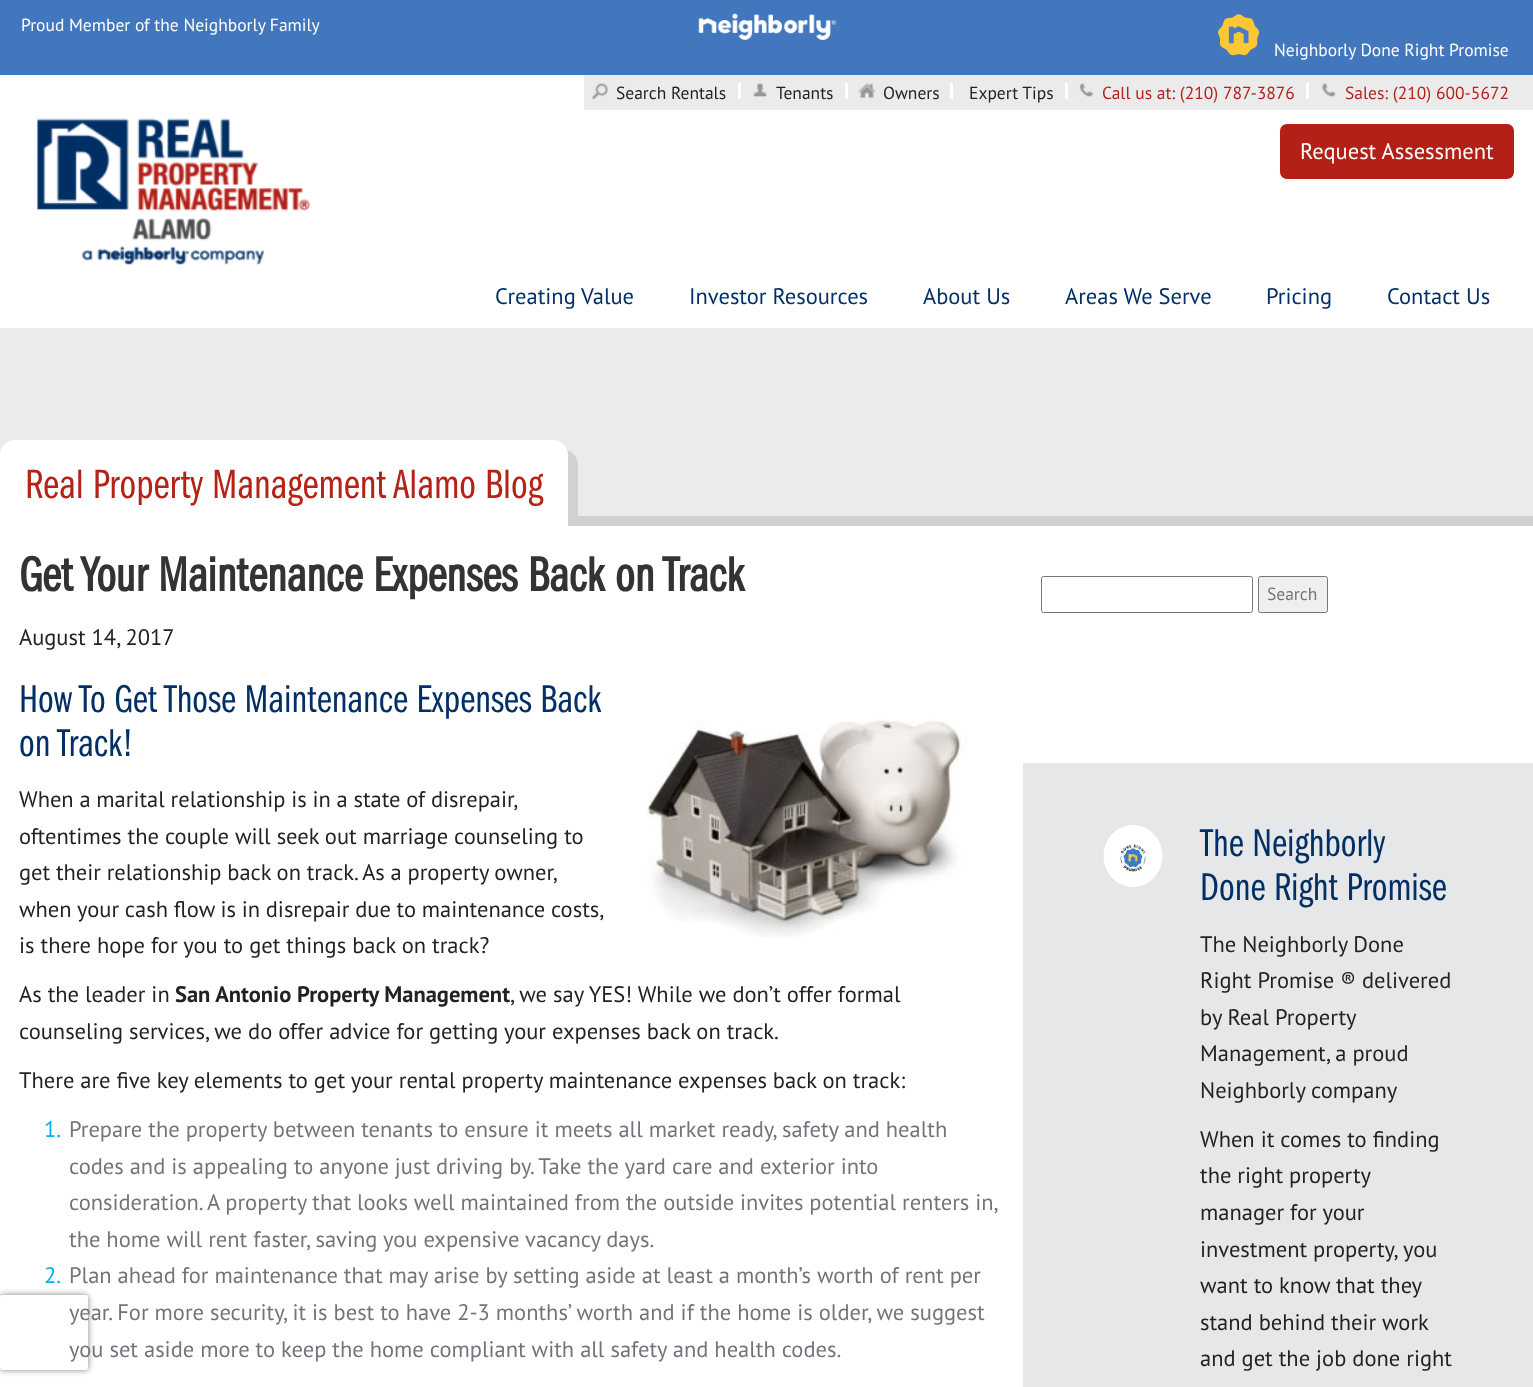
<svg xmlns="http://www.w3.org/2000/svg" width="1533" height="1387" viewBox="0 0 1533 1387">
  <defs>
    <clipPath id="clip1"><rect x="0" y="328" width="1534" height="198"/></clipPath>
    <clipPath id="clip2"><path d="M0 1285H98V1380H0ZM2.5 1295H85.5C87 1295 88 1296 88 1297.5V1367.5C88 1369 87 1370 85.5 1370H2.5C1 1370 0 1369 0 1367.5V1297.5C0 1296 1 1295 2.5 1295Z" clip-rule="evenodd"/></clipPath>
  </defs>
  <rect width="100%" height="100%" fill="rgb(67,119,189)"/>
  <text x="21" y="31" font-family="PT Sans" font-size="17.5" fill="rgb(255,255,255)">Proud Member of the Neighborly Family</text>
  <image x="698" y="13" width="139" height="27" href="pic1.png"/>
  <image x="1218" y="14" width="42" height="42" href="pic2.png"/>
  <text x="1274" y="56" font-family="PT Sans" font-size="17.5" fill="rgb(255,255,255)">Neighborly Done Right Promise</text>
  <rect x="0" y="75" width="1533" height="253" fill="rgb(255,255,255)"/>
  <rect x="584" y="75" width="949" height="35" fill="rgb(235,235,236)"/>
  <image x="592" y="83" width="16" height="16" href="pic3.png"/>
  <text x="616" y="99" font-family="PT Sans" font-size="17.5" fill="rgb(34,34,34)">Search Rentals</text>
  <rect x="738" y="83" width="3" height="16" fill="rgb(255,255,255)"/>
  <image x="753" y="83" width="14" height="14" href="pic4.png"/>
  <text x="776" y="99" font-family="PT Sans" font-size="17.5" fill="rgb(34,34,34)">Tenants</text>
  <rect x="845" y="83" width="3" height="16" fill="rgb(255,255,255)"/>
  <image x="858" y="83" width="17" height="15" href="pic5.png"/>
  <text x="883" y="99" font-family="PT Sans" font-size="17.5" fill="rgb(34,34,34)">Owners</text>
  <rect x="950" y="83" width="3" height="16" fill="rgb(255,255,255)"/>
  <text x="969" y="99" font-family="PT Sans" font-size="17.5" fill="rgb(34,34,34)">Expert Tips</text>
  <rect x="1065" y="83" width="3" height="16" fill="rgb(255,255,255)"/>
  <image x="1079" y="83" width="14" height="14" href="pic6.png"/>
  <text x="1102" y="99" font-family="PT Sans" font-size="17.5" fill="rgb(181,34,23)">Call us at: (210) 787-3876</text>
  <rect x="1306" y="83" width="3" height="16" fill="rgb(255,255,255)"/>
  <image x="1322" y="83" width="14" height="14" href="pic7.png"/>
  <text x="1345" y="99" font-family="PT Sans" font-size="17.5" fill="rgb(181,34,23)">Sales: (210) 600-5672</text>
  <image x="36" y="118" width="275" height="147" href="pic8.png"/>
  <rect x="1279.5" y="123.5" width="235" height="56" rx="7.5" fill="rgb(179,32,23)" stroke="rgb(255,255,255)"/>
  <text x="1300" y="159" font-family="PT Sans" font-size="22.5" fill="rgb(255,255,255)">Request Assessment</text>
  <g font-family="PT Sans" font-size="22.5" fill="rgb(2,47,101)">
    <text x="495" y="304">Creating Value</text>
    <text x="689" y="304">Investor Resources</text>
    <text x="923" y="304">About Us</text>
    <text x="1065" y="304">Areas We Serve</text>
    <text x="1266" y="304">Pricing</text>
    <text x="1387" y="304">Contact Us</text>
  </g>
  <rect x="0" y="328" width="1533" height="188" fill="rgb(235,235,237)"/>
  <rect x="578" y="516" width="955" height="10" fill="rgb(209,209,210)"/>
  <g clip-path="url(#clip1)">
    <path d="M10 536V546H578V465C578 458 573 452 567 450L568 455V536Z" fill="rgb(209,209,210)"/>
  </g>
  <path d="M15 440H553C561.5 440 568 446.5 568 455V526H0V455C0 446.5 6.5 440 15 440Z" fill="rgb(255,255,255)"/>
  <text x="25" y="498" font-family="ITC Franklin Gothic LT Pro" font-size="42.5" fill="rgb(181,34,23)">Real Property Management Alamo Blog</text>
  <rect x="0" y="526" width="1533" height="861" fill="rgb(255,255,255)"/>
  <text x="19" y="591" font-family="ITC Franklin Gothic LT Pro" font-size="50" font-weight="bold" fill="rgb(51,51,51)">Get Your Maintenance Expenses Back on Track</text>
  <text x="19" y="645" font-family="PT Sans" font-size="22.5" fill="rgb(34,34,34)">August 14, 2017</text>
  <g font-family="ITC Franklin Gothic LT Pro" font-size="40" fill="rgb(2,47,101)">
    <text>
      <tspan x="19" y="712">How To Get Those Maintenance Expenses Back</tspan>
      <tspan x="19" y="756">on Track!</tspan>
    </text>
  </g>
  <image x="646" y="719" width="322" height="219" href="pic9.png"/>
  <g font-family="PT Sans" font-size="22.5" fill="rgb(34,34,34)">
    <text>
      <tspan x="19" y="807" word-spacing="-0.25">When a marital relationship is in a state of disrepair,</tspan>
      <tspan x="19" y="844">oftentimes the couple will seek out marriage counseling to</tspan>
      <tspan x="19" y="880" word-spacing="-0.25">get their relationship back on track. As a property owner,</tspan>
      <tspan x="19" y="917" word-spacing="-0.25">when your cash flow is in disrepair due to maintenance costs,</tspan>
      <tspan x="19" y="953">is there hope for you to get things back on track?</tspan>
    </text>
    <text x="19" y="1002">As the leader in</text>
  </g>
  <text x="175" y="1002" font-family="PT Sans" font-size="22.5" font-weight="bold" fill="rgb(34,34,34)">San Antonio Property Management</text>
  <g font-family="PT Sans" font-size="22.5" fill="rgb(34,34,34)">
    <text x="510" y="1002">, we say YES! While we don’t offer formal</text>
    <text x="19" y="1039">counseling services, we do offer advice for getting your expenses back on track.</text>
    <text x="19" y="1088">There are five key elements to get your rental property maintenance expenses back on track:</text>
  </g>
  <text x="44" y="1137" font-family="PT Sans" font-size="22.5" fill="rgb(0,174,239)">1.</text>
  <g font-family="PT Sans" font-size="22.5" fill="rgb(113,116,123)">
    <text>
      <tspan x="69" y="1137">Prepare the property between tenants to ensure it meets all market ready, safety and health</tspan>
      <tspan x="69" y="1174">codes and is appealing to anyone just driving by. Take the yard care and exterior into</tspan>
      <tspan x="69" y="1210" word-spacing="-0.1">consideration. A property that looks well maintained from the outside invites potential renters in,</tspan>
      <tspan x="69" y="1247">the home will rent faster, saving you expensive vacancy days.</tspan>
    </text>
  </g>
  <text x="44" y="1283" font-family="PT Sans" font-size="22.5" fill="rgb(0,174,239)">2.</text>
  <g font-family="PT Sans" font-size="22.5" fill="rgb(113,116,123)">
    <text>
      <tspan x="69" y="1283">Plan ahead for maintenance that may arise by setting aside at least a month’s worth of rent per</tspan>
      <tspan x="69" y="1320">year. For more security, it is best to have 2-3 months’ worth and if the home is older, we suggest</tspan>
      <tspan x="69" y="1357">you set aside more to keep the home compliant with all safety and health codes.</tspan>
    </text>
  </g>
  <rect x="1041.5" y="576.5" width="211" height="36" rx="2" fill="none" stroke="rgb(118,118,118)"/>
  <rect x="1258.5" y="576.5" width="69" height="36" rx="2" fill="rgb(239,239,239)" stroke="rgb(118,118,118)"/>
  <text x="1267" y="600" font-family="PT Sans" font-size="17.5" fill="rgb(113,116,123)">Search</text>
  <rect x="1023" y="763" width="510" height="624" fill="rgb(230,231,233)"/>
  <ellipse cx="1133" cy="856" rx="29.5" ry="31" fill="rgb(255,255,255)"/>
  <image x="1120" y="844" width="26" height="28" href="pic10.png"/>
  <g font-family="ITC Franklin Gothic LT Pro" font-size="40" fill="rgb(2,47,101)">
    <text>
      <tspan x="1200" y="856">The Neighborly</tspan>
      <tspan x="1200" y="900">Done Right Promise</tspan>
    </text>
  </g>
  <g font-family="PT Sans" font-size="22.5" fill="rgb(34,34,34)">
    <text>
      <tspan x="1200" y="952">The Neighborly Done</tspan>
      <tspan x="1200" y="988">Right Promise ® delivered</tspan>
      <tspan x="1200" y="1025">by Real Property</tspan>
      <tspan x="1200" y="1061">Management, a proud</tspan>
      <tspan x="1200" y="1098">Neighborly company</tspan>
    </text>
    <text>
      <tspan x="1200" y="1147">When it comes to finding</tspan>
      <tspan x="1200" y="1183">the right property</tspan>
      <tspan x="1200" y="1220">manager for your</tspan>
      <tspan x="1200" y="1257">investment property,</tspan>
    </text>
    <text x="1403" y="1257">you</text>
    <text>
      <tspan x="1200" y="1293">want to know that they</tspan>
      <tspan x="1200" y="1330">stand behind their work</tspan>
      <tspan x="1200" y="1366">and get the job done right</tspan>
    </text>
  </g>
  <g clip-path="url(#clip2)">
    <rect x="0" y="1295" width="88" height="75" rx="2.5" fill="rgb(128,128,128)" filter="blur(3px)"/>
  </g>
</svg>
